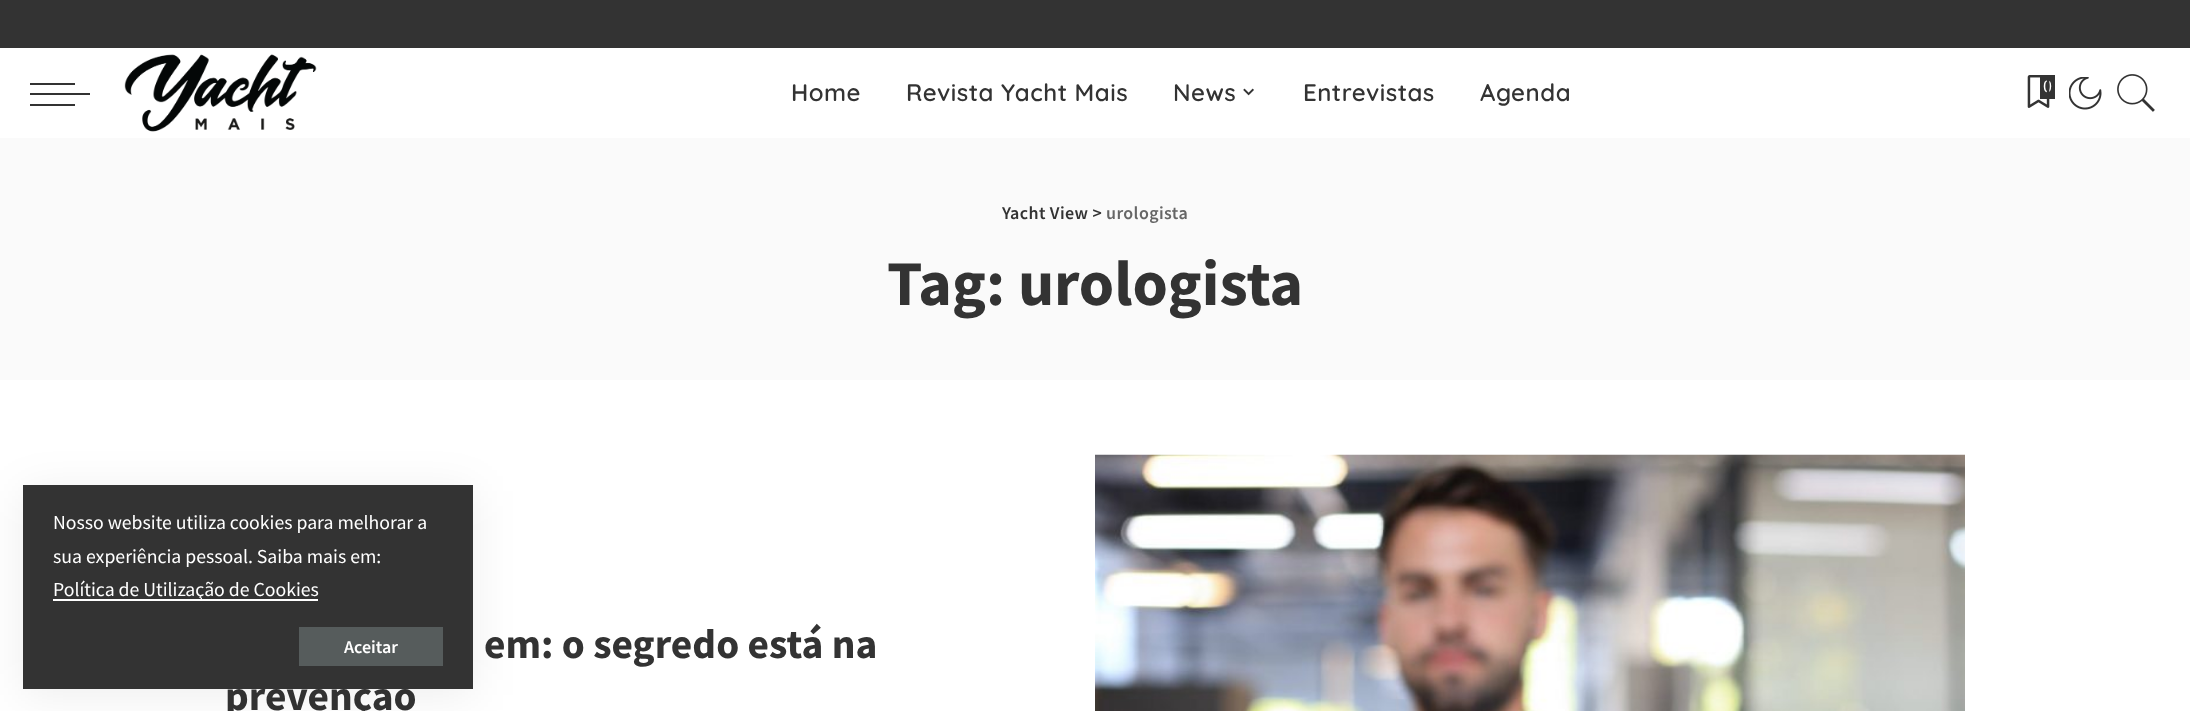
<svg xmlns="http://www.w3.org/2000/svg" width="2190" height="711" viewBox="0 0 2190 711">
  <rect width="100%" height="100%" fill="rgb(255,255,255)"/>
  <rect x="0" y="0" width="2190" height="48" fill="rgb(51,51,51)"/>
  <rect x="30" y="93" width="60" height="2" fill="rgb(51,51,51)"/>
  <rect x="30" y="83" width="45" height="2" fill="rgb(51,51,51)"/>
  <rect x="30" y="104" width="45" height="2" fill="rgb(51,51,51)"/>
  <image x="124" y="54" width="193" height="78" href="pic1.png"/>
  <g font-family="Quicksand" font-size="24" font-weight="600" letter-spacing="0.5" fill="rgb(51,51,51)">
    <text x="791" y="101">Home</text>
    <text x="906" y="101">Revista Yacht Mais</text>
    <text x="1173" y="101">News</text>
  </g>
  <image x="1243" y="88" width="11" height="8" href="pic2.png"/>
  <g font-family="Quicksand" font-size="24" font-weight="600" letter-spacing="0.5" fill="rgb(51,51,51)">
    <text x="1303" y="101">Entrevistas</text>
    <text x="1480" y="101">Agenda</text>
  </g>
  <rect x="2040" y="75" width="15" height="24" fill="rgb(51,51,51)"/>
  <text x="2043" y="92" font-family="Source Sans Pro" font-size="18" fill="rgb(255,255,255)">0</text>
  <image x="2027" y="75" width="23" height="33" href="pic3.png"/>
  <image x="2069" y="77" width="33" height="33" href="pic4.png"/>
  <image x="2117" y="74" width="38" height="38" href="pic5.png"/>
  <rect x="0" y="138" width="2190" height="242" fill="rgb(250,250,250)"/>
  <text x="1002" y="219" font-family="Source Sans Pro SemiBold" font-size="18" font-weight="600" letter-spacing="0.4" fill="rgb(51,51,51)">Yacht View &gt;</text>
  <text x="1106" y="219" font-family="Source Sans Pro SemiBold" font-size="18" font-weight="600" letter-spacing="0.4" fill="rgb(102,102,102)">urologista</text>
  <text x="887" y="305" font-family="Source Sans Pro" font-size="63.75" font-weight="bold" fill="rgb(51,51,51)">Tag: urologista</text>
  <g font-family="Source Sans Pro" font-size="41.5" font-weight="bold" fill="rgb(51,51,51)">
    <text x="484" y="658">em: o segredo está na</text>
    <text x="225" y="710">prevenção</text>
  </g>
  <image x="1095" y="454" width="870" height="257" href="pic6.png"/>
  <rect x="23" y="491" width="450" height="204" fill="rgba(0,0,0,0.07)" filter="blur(22.5px)"/>
  <rect x="23" y="485" width="450" height="204" fill="rgb(51,51,51)"/>
  <g font-family="Source Sans Pro" font-size="19.75" fill="rgb(255,255,255)">
    <text>
      <tspan x="53" y="529">Nosso website utiliza cookies para melhorar a</tspan>
      <tspan x="53" y="563">sua experiência pessoal. Saiba mais em:</tspan>
    </text>
  </g>
  <rect x="53" y="599" width="265" height="2" fill="rgb(255,255,255)"/>
  <text x="53" y="596" font-family="Source Sans Pro" font-size="19.75" fill="rgb(255,255,255)">Política de Utilização de Cookies</text>
  <rect x="299" y="627" width="144" height="39" fill="rgb(86,92,92)"/>
  <text x="344" y="653" font-family="Source Sans Pro SemiBold" font-size="18" font-weight="600" fill="rgb(255,255,255)">Aceitar</text>
</svg>
